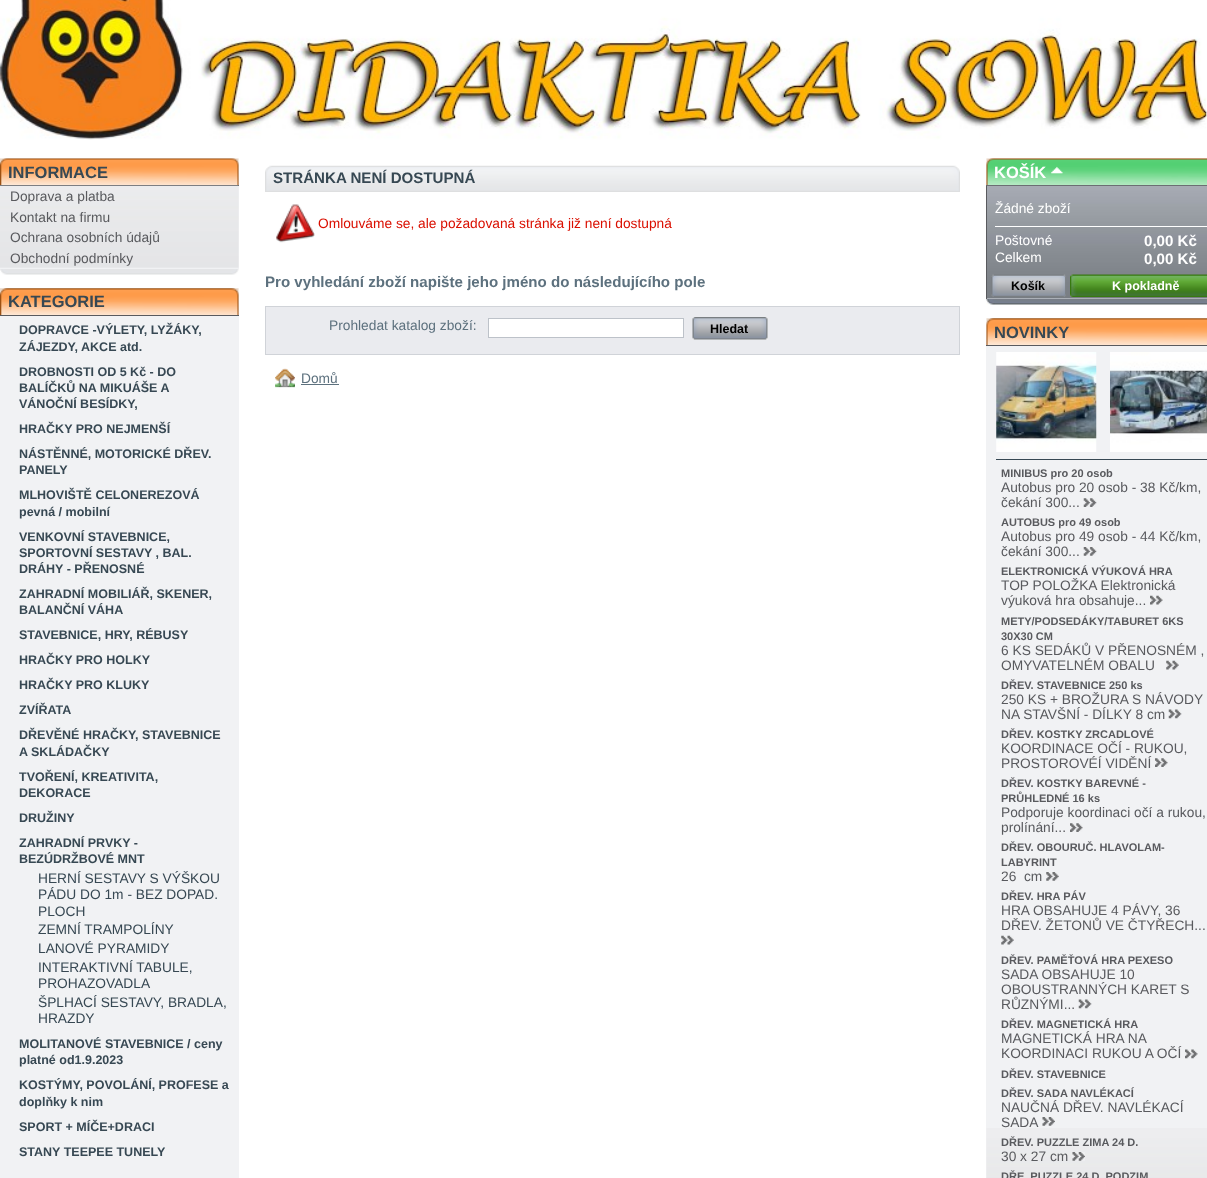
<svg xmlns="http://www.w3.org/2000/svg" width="1207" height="1178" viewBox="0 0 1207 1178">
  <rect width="100%" height="100%" fill="rgb(255,255,255)"/>
  <image x="0" y="0" width="1207" height="140" href="pic1.png"/>
  <image x="0" y="269" width="239" height="6" href="pic2.png"/>
  <image x="0" y="158" width="239" height="27" href="pic3.png"/>
  <rect x="0" y="185" width="239" height="1" fill="rgb(89,90,94)"/>
  <text x="8" y="178" font-family="Liberation Sans" font-size="16.5" font-weight="bold" fill="rgb(55,72,83)">INFORMACE</text>
  <rect x="0" y="186" width="239" height="83" fill="rgb(241,242,244)"/>
  <image x="0" y="185" width="239" height="83" href="pic4.png"/>
  <g font-family="Liberation Sans" font-size="13.75" fill="rgb(89,90,94)">
    <text>
      <tspan x="10" y="201">Doprava a platba</tspan>
      <tspan x="10" y="222">Kontakt na firmu</tspan>
      <tspan x="10" y="242">Ochrana osobních údajů</tspan>
      <tspan x="10" y="263">Obchodní podmínky</tspan>
    </text>
  </g>
  <image x="0" y="288" width="239" height="27" href="pic5.png"/>
  <rect x="0" y="315" width="239" height="1" fill="rgb(89,90,94)"/>
  <text x="8" y="307" font-family="Liberation Sans" font-size="16.5" font-weight="bold" fill="rgb(55,72,83)">KATEGORIE</text>
  <rect x="0" y="316" width="239" height="862" fill="rgb(241,242,244)"/>
  <g font-family="Liberation Sans" font-size="12.5" font-weight="bold" fill="rgb(55,72,83)">
    <text>
      <tspan x="19" y="334">DOPRAVCE -VÝLETY, LYŽÁKY,</tspan>
      <tspan x="19" y="351">ZÁJEZDY, AKCE atd.</tspan>
    </text>
    <text>
      <tspan x="19" y="376">DROBNOSTI OD 5 Kč - DO</tspan>
      <tspan x="19" y="392">BALÍČKŮ NA MIKUÁŠE A</tspan>
      <tspan x="19" y="408">VÁNOČNÍ BESÍDKY,</tspan>
    </text>
    <text x="19" y="433">HRAČKY PRO NEJMENŠÍ</text>
    <text>
      <tspan x="19" y="458">NÁSTĚNNÉ, MOTORICKÉ DŘEV.</tspan>
      <tspan x="19" y="474">PANELY</tspan>
    </text>
    <text>
      <tspan x="19" y="499">MLHOVIŠTĚ CELONEREZOVÁ</tspan>
      <tspan x="19" y="516">pevná / mobilní</tspan>
    </text>
    <text>
      <tspan x="19" y="541">VENKOVNÍ STAVEBNICE,</tspan>
      <tspan x="19" y="557">SPORTOVNÍ SESTAVY , BAL.</tspan>
      <tspan x="19" y="573">DRÁHY - PŘENOSNÉ</tspan>
    </text>
    <text>
      <tspan x="19" y="598">ZAHRADNÍ MOBILIÁŘ, SKENER,</tspan>
      <tspan x="19" y="614">BALANČNÍ VÁHA</tspan>
    </text>
    <text x="19" y="639">STAVEBNICE, HRY, RÉBUSY</text>
    <text x="19" y="664">HRAČKY PRO HOLKY</text>
    <text x="19" y="689">HRAČKY PRO KLUKY</text>
    <text x="19" y="714">ZVÍŘATA</text>
    <text>
      <tspan x="19" y="739">DŘEVĚNÉ HRAČKY, STAVEBNICE</tspan>
      <tspan x="19" y="756">A SKLÁDAČKY</tspan>
    </text>
    <text>
      <tspan x="19" y="781">TVOŘENÍ, KREATIVITA,</tspan>
      <tspan x="19" y="797">DEKORACE</tspan>
    </text>
    <text x="19" y="822">DRUŽINY</text>
    <text>
      <tspan x="19" y="847">ZAHRADNÍ PRVKY -</tspan>
      <tspan x="19" y="863">BEZÚDRŽBOVÉ MNT</tspan>
    </text>
  </g>
  <g font-family="Liberation Sans" font-size="13.75" fill="rgb(55,72,83)">
    <text>
      <tspan x="38" y="883">HERNÍ SESTAVY S VÝŠKOU</tspan>
      <tspan x="38" y="899">PÁDU DO 1m - BEZ DOPAD.</tspan>
      <tspan x="38" y="916">PLOCH</tspan>
      <tspan x="38" y="934">ZEMNÍ TRAMPOLÍNY</tspan>
      <tspan x="38" y="953">LANOVÉ PYRAMIDY</tspan>
      <tspan x="38" y="972">INTERAKTIVNÍ TABULE,</tspan>
      <tspan x="38" y="988">PROHAZOVADLA</tspan>
      <tspan x="38" y="1007">ŠPLHACÍ SESTAVY, BRADLA,</tspan>
      <tspan x="38" y="1023">HRAZDY</tspan>
    </text>
  </g>
  <g font-family="Liberation Sans" font-size="12.5" font-weight="bold" fill="rgb(55,72,83)">
    <text>
      <tspan x="19" y="1048">MOLITANOVÉ STAVEBNICE / ceny</tspan>
      <tspan x="19" y="1064">platné od1.9.2023</tspan>
    </text>
    <text>
      <tspan x="19" y="1089">KOSTÝMY, POVOLÁNÍ, PROFESE a</tspan>
      <tspan x="19" y="1106">doplňky k nim</tspan>
    </text>
    <text x="19" y="1131">SPORT + MÍČE+DRACI</text>
    <text x="19" y="1156">STANY TEEPEE TUNELY</text>
  </g>
  <image x="265" y="165" width="695" height="27" href="pic6.png"/>
  <text x="273" y="183" font-family="Liberation Sans" font-size="15.1" font-weight="bold" fill="rgb(55,72,83)">STRÁNKA NENÍ DOSTUPNÁ</text>
  <image x="276" y="204" width="39" height="39" href="pic7.png"/>
  <text x="318" y="228" font-family="Liberation Sans" font-size="13.75" fill="rgb(218,15,0)">Omlouváme se, ale požadovaná stránka již není dostupná</text>
  <text x="265" y="287" font-family="Liberation Sans" font-size="15.1" font-weight="bold" fill="rgb(93,113,126)">Pro vyhledání zboží napište jeho jméno do následujícího pole</text>
  <rect x="265.5" y="306.5" width="694" height="48" fill="rgb(234,235,239)" stroke="rgb(208,211,216)"/>
  <text x="329" y="330" font-family="Liberation Sans" font-size="13.75" fill="rgb(93,113,126)">Prohledat katalog zboží:</text>
  <rect x="488.5" y="318.5" width="195" height="19" fill="rgb(255,255,255)" stroke="rgb(189,194,201)"/>
  <rect x="693" y="318" width="75" height="22" fill="rgb(239,239,239)"/>
  <image x="692" y="317" width="76" height="23" href="pic8.png"/>
  <text x="710" y="333" font-family="Liberation Sans" font-size="12.5" font-weight="bold" fill="rgb(0,0,0)">Hledat</text>
  <image x="275" y="368" width="20" height="20" href="pic9.png"/>
  <text x="301" y="383" font-family="Liberation Sans" font-size="13.75" fill="rgb(93,113,126)">Domů</text>
  <rect x="301" y="384" width="38" height="1" fill="rgb(93,113,126)"/>
  <image x="986" y="299" width="221" height="6" href="pic10.png"/>
  <image x="986" y="158" width="221" height="27" href="pic11.png"/>
  <rect x="986" y="185" width="221" height="1" fill="rgb(89,90,94)"/>
  <text x="994" y="178" font-family="Liberation Sans" font-size="16.5" font-weight="bold" fill="rgb(255,255,255)">KOŠÍK</text>
  <image x="1051" y="166" width="12" height="8" href="pic12.png"/>
  <rect x="987" y="298" width="220" height="1" fill="rgb(189,194,201)"/>
  <image x="986" y="185" width="221" height="114" href="pic13.png"/>
  <rect x="986" y="186" width="1" height="113" fill="rgb(89,90,94)"/>
  <text x="995" y="213" font-family="Liberation Sans" font-size="13.75" fill="rgb(255,255,255)">Žádné zboží</text>
  <rect x="995" y="226" width="212" height="1" fill="rgb(255,255,255)"/>
  <text x="995" y="245" font-family="Liberation Sans" font-size="13.75" fill="rgb(255,255,255)">Poštovné</text>
  <text x="1144" y="246" font-family="Liberation Sans" font-size="15.1" font-weight="bold" fill="rgb(255,255,255)">0,00 Kč</text>
  <text x="995" y="262" font-family="Liberation Sans" font-size="13.75" fill="rgb(255,255,255)">Celkem</text>
  <text x="1144" y="264" font-family="Liberation Sans" font-size="15.1" font-weight="bold" fill="rgb(255,255,255)">0,00 Kč</text>
  <image x="991" y="274" width="75" height="23" href="pic14.png"/>
  <text x="1011" y="290" font-family="Liberation Sans" font-size="12.5" font-weight="bold" fill="rgb(0,0,0)">Košík</text>
  <image x="1070" y="274" width="137" height="23" href="pic15.png"/>
  <text x="1112" y="290" font-family="Liberation Sans" font-size="12.5" font-weight="bold" fill="rgb(255,255,255)">K pokladně</text>
  <image x="986" y="318" width="221" height="27" href="pic16.png"/>
  <rect x="986" y="345" width="221" height="1" fill="rgb(89,90,94)"/>
  <text x="994" y="338" font-family="Liberation Sans" font-size="16.5" font-weight="bold" fill="rgb(55,72,83)">NOVINKY</text>
  <rect x="986" y="346" width="221" height="832" fill="rgb(241,242,244)"/>
  <image x="986" y="1128" width="221" height="50" href="pic17.png"/>
  <image x="996" y="352" width="101" height="100" href="pic18.png"/>
  <image x="1110" y="352" width="97" height="100" href="pic19.png"/>
  <rect x="996" y="459" width="211" height="1" fill="rgb(55,72,83)"/>
  <text x="1001" y="477" font-family="Liberation Sans" font-size="11" font-weight="bold" fill="rgb(89,90,94)">MINIBUS pro 20 osob</text>
  <g font-family="Liberation Sans" font-size="13.75" fill="rgb(89,90,94)">
    <text>
      <tspan x="1001" y="492">Autobus pro 20 osob - 38 Kč/km,</tspan>
      <tspan x="1001" y="507">čekání 300...</tspan>
    </text>
  </g>
  <image x="1083" y="498" width="14" height="9" href="pic20.png"/>
  <text x="1001" y="526" font-family="Liberation Sans" font-size="11" font-weight="bold" fill="rgb(89,90,94)">AUTOBUS pro 49 osob</text>
  <g font-family="Liberation Sans" font-size="13.75" fill="rgb(89,90,94)">
    <text>
      <tspan x="1001" y="541">Autobus pro 49 osob - 44 Kč/km,</tspan>
      <tspan x="1001" y="556">čekání 300...</tspan>
    </text>
  </g>
  <image x="1083" y="547" width="14" height="9" href="pic21.png"/>
  <text x="1001" y="575" font-family="Liberation Sans" font-size="11" font-weight="bold" fill="rgb(89,90,94)">ELEKTRONICKÁ VÝUKOVÁ HRA</text>
  <g font-family="Liberation Sans" font-size="13.75" fill="rgb(89,90,94)">
    <text>
      <tspan x="1001" y="590">TOP POLOŽKA Elektronická</tspan>
      <tspan x="1001" y="605">výuková hra obsahuje...</tspan>
    </text>
  </g>
  <image x="1150" y="595" width="13" height="10" href="pic22.png"/>
  <g font-family="Liberation Sans" font-size="11" font-weight="bold" fill="rgb(89,90,94)">
    <text>
      <tspan x="1001" y="625">METY/PODSEDÁKY/TABURET 6KS</tspan>
      <tspan x="1001" y="640">30X30 CM</tspan>
    </text>
  </g>
  <g font-family="Liberation Sans" font-size="13.75" fill="rgb(89,90,94)">
    <text>
      <tspan x="1001" y="655">6 KS SEDÁKŮ V PŘENOSNÉM ,</tspan>
      <tspan x="1001" y="670">OMYVATELNÉM OBALU</tspan>
    </text>
  </g>
  <image x="1166" y="660" width="13" height="10" href="pic23.png"/>
  <text x="1001" y="689" font-family="Liberation Sans" font-size="11" font-weight="bold" fill="rgb(89,90,94)">DŘEV. STAVEBNICE 250 ks</text>
  <g font-family="Liberation Sans" font-size="13.75" fill="rgb(89,90,94)">
    <text>
      <tspan x="1001" y="704">250 KS + BROŽURA S NÁVODY</tspan>
      <tspan x="1001" y="719">NA STAVŠNÍ - DÍLKY 8 cm</tspan>
    </text>
  </g>
  <image x="1168" y="709" width="14" height="10" href="pic24.png"/>
  <text x="1001" y="738" font-family="Liberation Sans" font-size="11" font-weight="bold" fill="rgb(89,90,94)">DŘEV. KOSTKY ZRCADLOVÉ</text>
  <g font-family="Liberation Sans" font-size="13.75" fill="rgb(89,90,94)">
    <text>
      <tspan x="1001" y="753">KOORDINACE OČÍ - RUKOU,</tspan>
      <tspan x="1001" y="768">PROSTOROVÉÍ VIDĚNÍ</tspan>
    </text>
  </g>
  <image x="1155" y="758" width="13" height="9" href="pic25.png"/>
  <g font-family="Liberation Sans" font-size="11" font-weight="bold" fill="rgb(89,90,94)">
    <text>
      <tspan x="1001" y="787">DŘEV. KOSTKY BAREVNÉ -</tspan>
      <tspan x="1001" y="802">PRŮHLEDNÉ 16 ks</tspan>
    </text>
  </g>
  <g font-family="Liberation Sans" font-size="13.75" fill="rgb(89,90,94)">
    <text>
      <tspan x="1001" y="817">Podporuje koordinaci očí a rukou,</tspan>
      <tspan x="1001" y="832">prolínání...</tspan>
    </text>
  </g>
  <image x="1070" y="823" width="13" height="9" href="pic26.png"/>
  <g font-family="Liberation Sans" font-size="11" font-weight="bold" fill="rgb(89,90,94)">
    <text>
      <tspan x="1001" y="851">DŘEV. OBOURUČ. HLAVOLAM-</tspan>
      <tspan x="1001" y="866">LABYRINT</tspan>
    </text>
  </g>
  <text x="1001" y="881" font-family="Liberation Sans" font-size="13.75" fill="rgb(89,90,94)" xml:space="preserve">26  cm</text>
  <image x="1046" y="872" width="13" height="9" href="pic27.png"/>
  <text x="1001" y="900" font-family="Liberation Sans" font-size="11" font-weight="bold" fill="rgb(89,90,94)">DŘEV. HRA PÁV</text>
  <g font-family="Liberation Sans" font-size="13.75" fill="rgb(89,90,94)">
    <text>
      <tspan x="1001" y="915">HRA OBSAHUJE 4 PÁVY, 36</tspan>
      <tspan x="1001" y="930">DŘEV. ŽETONŮ VE ČTYŘECH...</tspan>
    </text>
  </g>
  <image x="1001" y="935" width="13" height="10" href="pic23.png"/>
  <text x="1001" y="964" font-family="Liberation Sans" font-size="11" font-weight="bold" fill="rgb(89,90,94)">DŘEV. PAMĚŤOVÁ HRA PEXESO</text>
  <g font-family="Liberation Sans" font-size="13.75" fill="rgb(89,90,94)">
    <text>
      <tspan x="1001" y="979">SADA OBSAHUJE 10</tspan>
      <tspan x="1001" y="994">OBOUSTRANNÝCH KARET S</tspan>
      <tspan x="1001" y="1009">RŮZNÝMI...</tspan>
    </text>
  </g>
  <image x="1078" y="999" width="14" height="10" href="pic24.png"/>
  <text x="1001" y="1028" font-family="Liberation Sans" font-size="11" font-weight="bold" fill="rgb(89,90,94)">DŘEV. MAGNETICKÁ HRA</text>
  <g font-family="Liberation Sans" font-size="13.75" fill="rgb(89,90,94)">
    <text>
      <tspan x="1001" y="1043">MAGNETICKÁ HRA NA</tspan>
      <tspan x="1001" y="1058">KOORDINACI RUKOU A OČÍ</tspan>
    </text>
  </g>
  <image x="1185" y="1049" width="13" height="10" href="pic28.png"/>
  <g font-family="Liberation Sans" font-size="11" font-weight="bold" fill="rgb(89,90,94)">
    <text>
      <tspan x="1001" y="1078">DŘEV. STAVEBNICE</tspan>
      <tspan x="1001" y="1097">DŘEV. SADA NAVLÉKACÍ</tspan>
    </text>
  </g>
  <g font-family="Liberation Sans" font-size="13.75" fill="rgb(89,90,94)">
    <text>
      <tspan x="1001" y="1112">NAUČNÁ DŘEV. NAVLÉKACÍ</tspan>
      <tspan x="1001" y="1127">SADA</tspan>
    </text>
  </g>
  <image x="1042" y="1117" width="13" height="9" href="pic29.png"/>
  <text x="1001" y="1146" font-family="Liberation Sans" font-size="11" font-weight="bold" fill="rgb(89,90,94)">DŘEV. PUZZLE ZIMA 24 D.</text>
  <text x="1001" y="1161" font-family="Liberation Sans" font-size="13.75" fill="rgb(89,90,94)">30 x 27 cm</text>
  <image x="1072" y="1152" width="13" height="9" href="pic30.png"/>
  <text x="1001" y="1180" font-family="Liberation Sans" font-size="11" font-weight="bold" fill="rgb(89,90,94)">DŘE. PUZZLE 24 D. PODZIM</text>
</svg>
